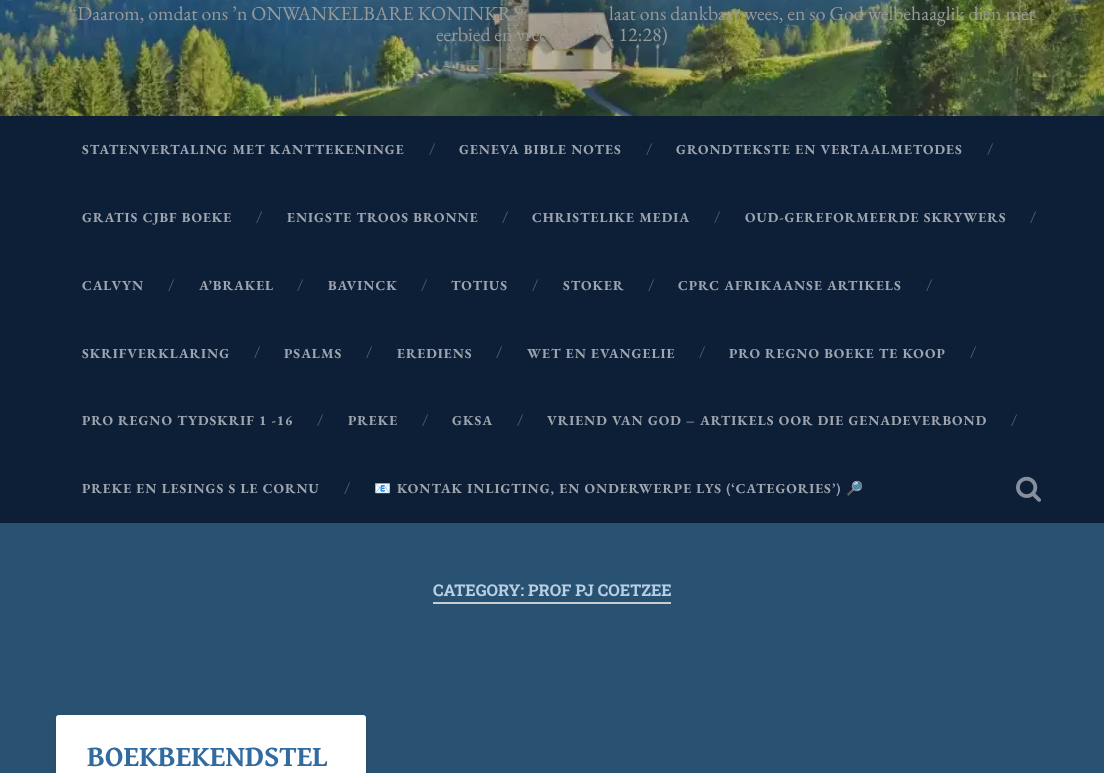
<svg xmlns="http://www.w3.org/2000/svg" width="1104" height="773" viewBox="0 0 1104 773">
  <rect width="100%" height="100%" fill="rgb(41,82,114)"/>
  <image x="0" y="0" width="1104" height="116" href="pic1.png"/>
  <g font-family="EB Garamond" font-size="19.8" fill="rgb(153,153,153)">
    <text x="69" y="20">“Daarom, omdat ons ’n ONWANKELBARE KONINKR</text>
    <text x="609" y="20">laat ons dankbaar wees, en so God welbehaaglik dien met</text>
    <text x="436" y="41">eerbied en vree</text>
    <text x="610" y="41">. 12:28)</text>
  </g>
  <rect x="0" y="116" width="1104" height="407" fill="rgb(12,31,54)"/>
  <text x="82" y="154" font-family="EB Garamond" font-size="13.75" font-weight="bold" letter-spacing="1" fill="rgb(158,165,175)">STATENVERTALING MET KANTTEKENINGE</text>
  <text x="429" y="154" font-family="EB Garamond" font-size="16" fill="rgb(85,98,114)">/</text>
  <text x="459" y="154" font-family="EB Garamond" font-size="13.75" font-weight="bold" letter-spacing="1" fill="rgb(158,165,175)">GENEVA BIBLE NOTES</text>
  <text x="646" y="154" font-family="EB Garamond" font-size="16" fill="rgb(85,98,114)">/</text>
  <text x="676" y="154" font-family="EB Garamond" font-size="13.75" font-weight="bold" letter-spacing="1" fill="rgb(158,165,175)">GRONDTEKSTE EN VERTAALMETODES</text>
  <text x="987" y="154" font-family="EB Garamond" font-size="16" fill="rgb(85,98,114)">/</text>
  <text x="82" y="222" font-family="EB Garamond" font-size="13.75" font-weight="bold" letter-spacing="1" fill="rgb(158,165,175)">GRATIS CJBF BOEKE</text>
  <text x="256" y="222" font-family="EB Garamond" font-size="16" fill="rgb(85,98,114)">/</text>
  <text x="287" y="222" font-family="EB Garamond" font-size="13.75" font-weight="bold" letter-spacing="1" fill="rgb(158,165,175)">ENIGSTE TROOS BRONNE</text>
  <text x="502" y="222" font-family="EB Garamond" font-size="16" fill="rgb(85,98,114)">/</text>
  <text x="532" y="222" font-family="EB Garamond" font-size="13.75" font-weight="bold" letter-spacing="1" fill="rgb(158,165,175)">CHRISTELIKE MEDIA</text>
  <text x="714" y="222" font-family="EB Garamond" font-size="16" fill="rgb(85,98,114)">/</text>
  <text x="745" y="222" font-family="EB Garamond" font-size="13.75" font-weight="bold" letter-spacing="1" fill="rgb(158,165,175)">OUD-GEREFORMEERDE SKRYWERS</text>
  <text x="1030" y="222" font-family="EB Garamond" font-size="16" fill="rgb(85,98,114)">/</text>
  <text x="82" y="290" font-family="EB Garamond" font-size="13.75" font-weight="bold" letter-spacing="1" fill="rgb(158,165,175)">CALVYN</text>
  <text x="168" y="290" font-family="EB Garamond" font-size="16" fill="rgb(85,98,114)">/</text>
  <text x="199" y="290" font-family="EB Garamond" font-size="13.75" font-weight="bold" letter-spacing="1" fill="rgb(158,165,175)">A’BRAKEL</text>
  <text x="297" y="290" font-family="EB Garamond" font-size="16" fill="rgb(85,98,114)">/</text>
  <text x="328" y="290" font-family="EB Garamond" font-size="13.75" font-weight="bold" letter-spacing="1" fill="rgb(158,165,175)">BAVINCK</text>
  <text x="421" y="290" font-family="EB Garamond" font-size="16" fill="rgb(85,98,114)">/</text>
  <text x="451" y="290" font-family="EB Garamond" font-size="13.75" font-weight="bold" letter-spacing="1" fill="rgb(158,165,175)">TOTIUS</text>
  <text x="532" y="290" font-family="EB Garamond" font-size="16" fill="rgb(85,98,114)">/</text>
  <text x="563" y="290" font-family="EB Garamond" font-size="13.75" font-weight="bold" letter-spacing="1" fill="rgb(158,165,175)">STOKER</text>
  <text x="648" y="290" font-family="EB Garamond" font-size="16" fill="rgb(85,98,114)">/</text>
  <text x="678" y="290" font-family="EB Garamond" font-size="13.75" font-weight="bold" letter-spacing="1" fill="rgb(158,165,175)">CPRC AFRIKAANSE ARTIKELS</text>
  <text x="926" y="290" font-family="EB Garamond" font-size="16" fill="rgb(85,98,114)">/</text>
  <text x="82" y="358" font-family="EB Garamond" font-size="13.75" font-weight="bold" letter-spacing="1" fill="rgb(158,165,175)">SKRIFVERKLARING</text>
  <text x="254" y="357" font-family="EB Garamond" font-size="16" fill="rgb(85,98,114)">/</text>
  <text x="284" y="358" font-family="EB Garamond" font-size="13.75" font-weight="bold" letter-spacing="1" fill="rgb(158,165,175)">PSALMS</text>
  <text x="366" y="357" font-family="EB Garamond" font-size="16" fill="rgb(85,98,114)">/</text>
  <text x="397" y="358" font-family="EB Garamond" font-size="13.75" font-weight="bold" letter-spacing="1" fill="rgb(158,165,175)">EREDIENS</text>
  <text x="496" y="357" font-family="EB Garamond" font-size="16" fill="rgb(85,98,114)">/</text>
  <text x="527" y="358" font-family="EB Garamond" font-size="13.75" font-weight="bold" letter-spacing="1" fill="rgb(158,165,175)">WET EN EVANGELIE</text>
  <text x="699" y="357" font-family="EB Garamond" font-size="16" fill="rgb(85,98,114)">/</text>
  <text x="729" y="358" font-family="EB Garamond" font-size="13.75" font-weight="bold" letter-spacing="1" fill="rgb(158,165,175)">PRO REGNO BOEKE TE KOOP</text>
  <text x="970" y="357" font-family="EB Garamond" font-size="16" fill="rgb(85,98,114)">/</text>
  <text x="82" y="425" font-family="EB Garamond" font-size="13.75" font-weight="bold" letter-spacing="1" fill="rgb(158,165,175)">PRO REGNO TYDSKRIF 1 -16</text>
  <text x="317" y="425" font-family="EB Garamond" font-size="16" fill="rgb(85,98,114)">/</text>
  <text x="348" y="425" font-family="EB Garamond" font-size="13.75" font-weight="bold" letter-spacing="1" fill="rgb(158,165,175)">PREKE</text>
  <text x="422" y="425" font-family="EB Garamond" font-size="16" fill="rgb(85,98,114)">/</text>
  <text x="452" y="425" font-family="EB Garamond" font-size="13.75" font-weight="bold" letter-spacing="1" fill="rgb(158,165,175)">GKSA</text>
  <text x="517" y="425" font-family="EB Garamond" font-size="16" fill="rgb(85,98,114)">/</text>
  <text x="547" y="425" font-family="EB Garamond" font-size="13.75" font-weight="bold" letter-spacing="1" fill="rgb(158,165,175)">VRIEND VAN GOD – ARTIKELS OOR DIE GENADEVERBOND</text>
  <text x="1011" y="425" font-family="EB Garamond" font-size="16" fill="rgb(85,98,114)">/</text>
  <text x="82" y="493" font-family="EB Garamond" font-size="13.75" font-weight="bold" letter-spacing="1" fill="rgb(158,165,175)">PREKE EN LESINGS S LE CORNU</text>
  <text x="344" y="493" font-family="EB Garamond" font-size="16" fill="rgb(85,98,114)">/</text>
  <text x="374" y="493" font-family="Noto Color Emoji" font-size="13.75" font-weight="bold" letter-spacing="1" fill="rgb(158,165,175)">📧</text>
  <text x="397" y="493" font-family="EB Garamond" font-size="13.75" font-weight="bold" letter-spacing="1" fill="rgb(158,165,175)">KONTAK INLIGTING, EN ONDERWERPE LYS (‘CATEGORIES’)</text>
  <text x="846" y="493" font-family="Noto Color Emoji" font-size="13.75" font-weight="bold" letter-spacing="1" fill="rgb(158,165,175)">🔎</text>
  <image x="1016" y="476" width="25" height="26" href="pic2.png"/>
  <rect x="433" y="602" width="238" height="2" fill="rgb(204,204,204)"/>
  <text x="433" y="596" font-family="Roboto Slab" font-size="16.25" font-weight="bold" fill="rgb(184,207,228)">CATEGORY: PROF PJ COETZEE</text>
  <rect x="56" y="716" width="310" height="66" rx="3" fill="rgba(0,0,0,0.1)" filter="blur(2px)"/>
  <rect x="56" y="715" width="310" height="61" rx="3" fill="rgb(255,255,255)"/>
  <text x="87" y="766" font-family="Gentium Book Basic" font-size="29.25" font-weight="bold" fill="rgb(50,107,160)">BOEKBEKENDSTEL</text>
</svg>
